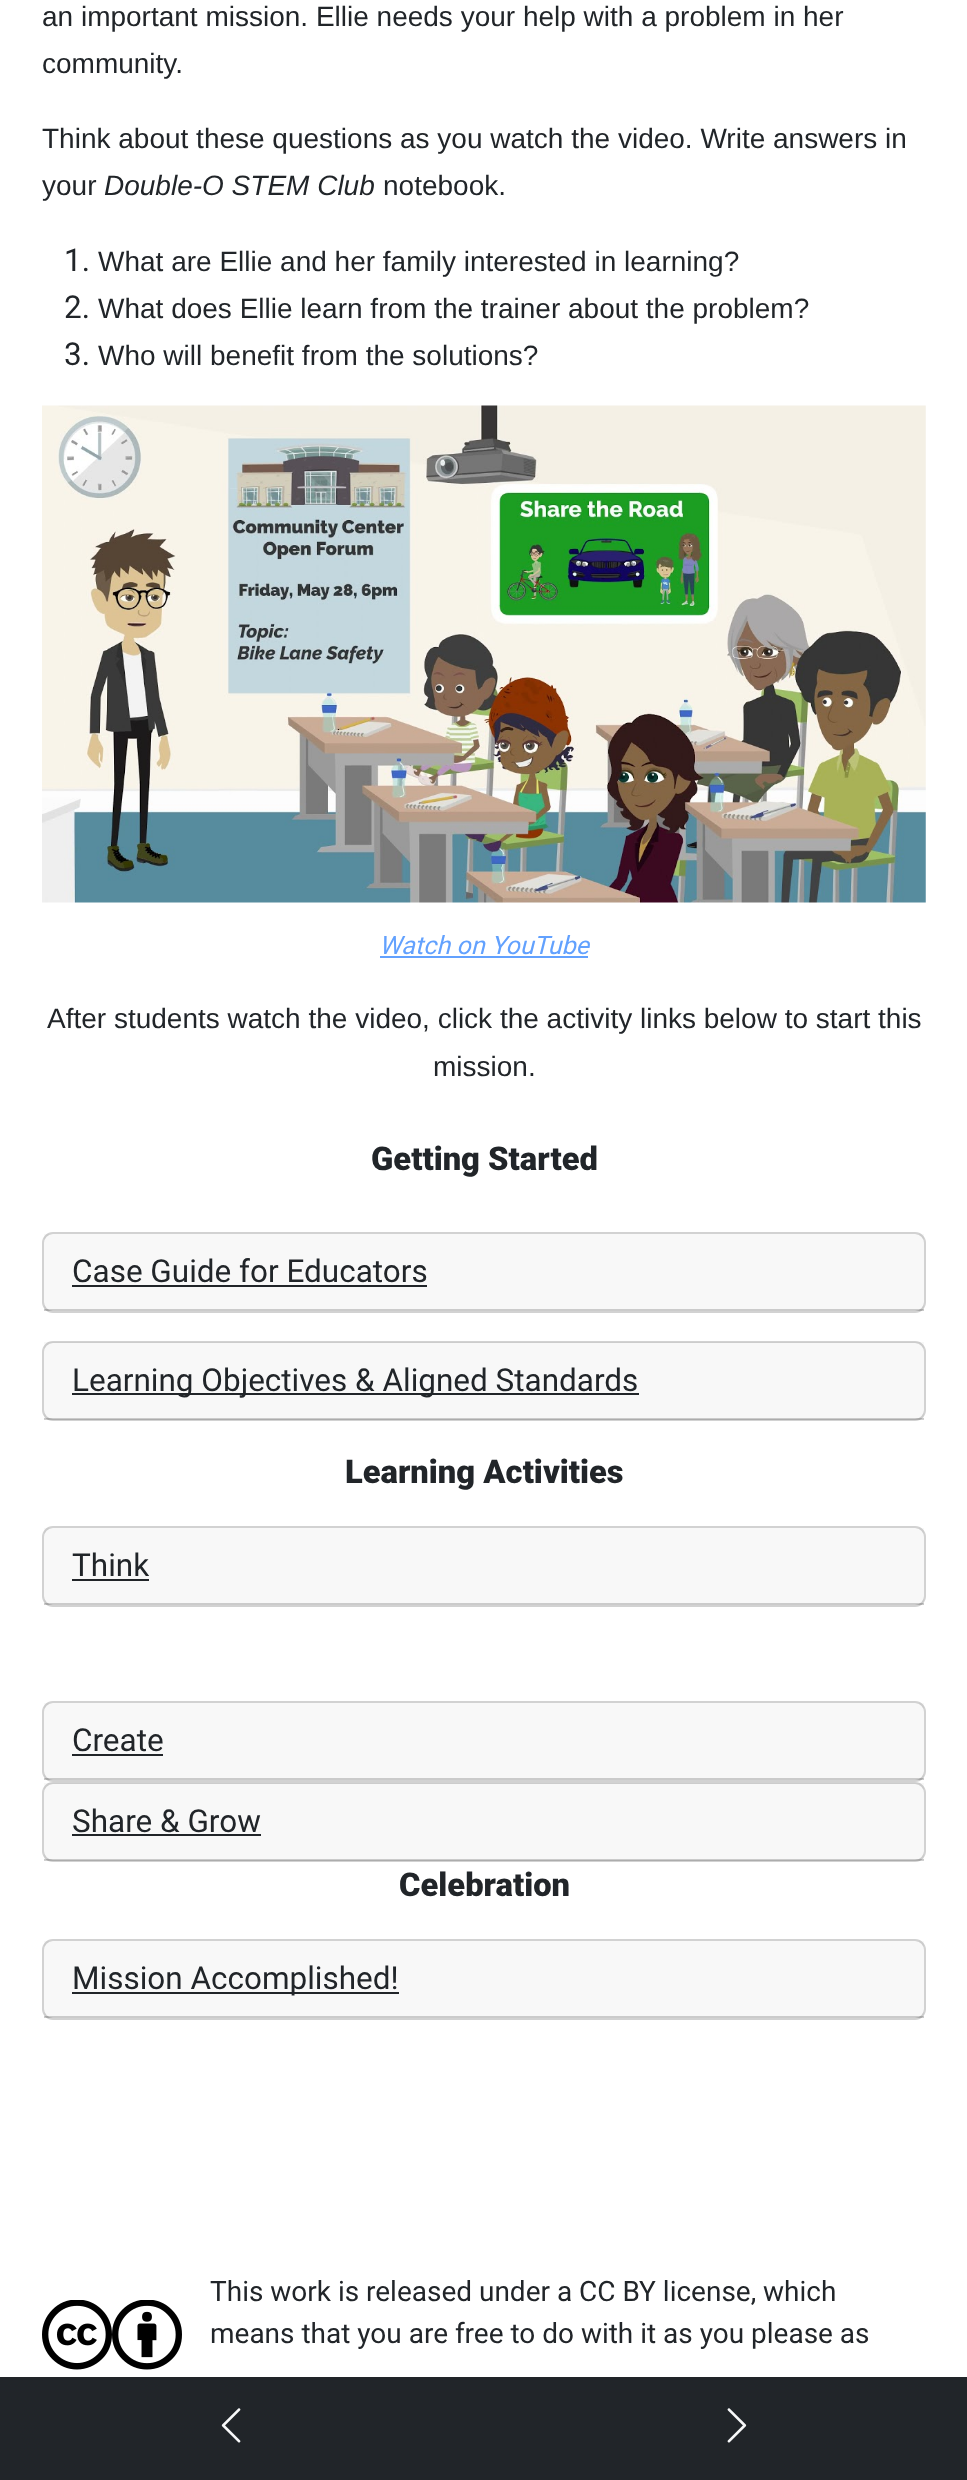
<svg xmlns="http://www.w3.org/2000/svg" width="967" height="2480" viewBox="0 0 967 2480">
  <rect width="100%" height="100%" fill="rgb(255,255,255)"/>
  <g font-family="Liberation Sans" font-size="28" fill="rgb(33,37,41)">
    <text>
      <tspan x="42" y="26">an important mission. Ellie needs your help with a problem in her</tspan>
      <tspan x="42" y="73">community.</tspan>
    </text>
    <text>
      <tspan x="42" y="148">Think about these questions as you watch the video. Write answers in</tspan>
      <tspan x="42" y="195">your</tspan>
    </text>
  </g>
  <text x="104" y="195" font-family="Liberation Sans" font-size="28" font-style="italic" fill="rgb(33,37,41)">Double-O STEM Club</text>
  <text x="383" y="195" font-family="Liberation Sans" font-size="28" fill="rgb(33,37,41)">notebook.</text>
  <text x="64" y="271" font-family="Roboto" font-size="31.5" fill="rgb(33,37,41)">1.</text>
  <text x="98" y="271" font-family="Liberation Sans" font-size="28" fill="rgb(33,37,41)">What are Ellie and her family interested in learning?</text>
  <text x="64" y="318" font-family="Roboto" font-size="31.5" fill="rgb(33,37,41)">2.</text>
  <text x="98" y="318" font-family="Liberation Sans" font-size="28" fill="rgb(33,37,41)">What does Ellie learn from the trainer about the problem?</text>
  <text x="64" y="365" font-family="Roboto" font-size="31.5" fill="rgb(33,37,41)">3.</text>
  <text x="98" y="365" font-family="Liberation Sans" font-size="28" fill="rgb(33,37,41)">Who will benefit from the solutions?</text>
  <image x="42" y="405" width="884" height="498" href="pic1.png"/>
  <text x="379" y="954" font-family="Roboto" font-size="25.25" font-style="italic" fill="rgb(98,161,254)">Watch on YouTube</text>
  <rect x="380" y="956" width="208" height="2" fill="rgb(98,161,254)"/>
  <g font-family="Liberation Sans" font-size="28" fill="rgb(33,37,41)">
    <text x="47" y="1028">After students watch the video, click the activity links below to start this</text>
    <text x="433" y="1076">mission.</text>
  </g>
  <text x="371" y="1170" font-family="Roboto" font-size="32.75" font-weight="900" fill="rgb(33,37,41)">Getting Started</text>
  <rect x="43" y="1233" width="882" height="79" rx="10" fill="none" stroke="rgb(210,210,210)" stroke-width="2"/>
  <rect x="44" y="1234" width="880" height="77" fill="rgba(33,37,41,0.03)"/>
  <rect x="44" y="1309" width="880" height="2" fill="rgba(0,0,0,0.18)"/>
  <text x="72" y="1282" font-family="Roboto" font-size="31.5" fill="rgb(33,37,41)">Case Guide for Educators</text>
  <rect x="72" y="1285" width="355" height="2" fill="rgb(33,37,41)"/>
  <rect x="43" y="1342" width="882" height="78" rx="10" fill="none" stroke="rgb(210,210,210)" stroke-width="2"/>
  <rect x="44" y="1342" width="880" height="77" fill="rgba(33,37,41,0.03)"/>
  <rect x="44" y="1418" width="880" height="2" fill="rgba(0,0,0,0.18)"/>
  <rect x="72" y="1393" width="567" height="2" fill="rgb(33,37,41)"/>
  <text x="72" y="1391" font-family="Roboto" font-size="31.5" fill="rgb(33,37,41)">Learning Objectives &amp; Aligned Standards</text>
  <text x="345" y="1483" font-family="Roboto" font-size="32.75" font-weight="900" fill="rgb(33,37,41)">Learning Activities</text>
  <rect x="43" y="1527" width="882" height="79" rx="10" fill="none" stroke="rgb(210,210,210)" stroke-width="2"/>
  <rect x="44" y="1528" width="880" height="77" fill="rgba(33,37,41,0.03)"/>
  <rect x="44" y="1603" width="880" height="2" fill="rgba(0,0,0,0.18)"/>
  <text x="72" y="1576" font-family="Roboto" font-size="31.5" fill="rgb(33,37,41)">Think</text>
  <rect x="72" y="1579" width="77" height="2" fill="rgb(33,37,41)"/>
  <rect x="43" y="1702" width="882" height="79" rx="10" fill="none" stroke="rgb(210,210,210)" stroke-width="2"/>
  <rect x="44" y="1703" width="880" height="77" fill="rgba(33,37,41,0.03)"/>
  <rect x="44" y="1778" width="880" height="2" fill="rgba(0,0,0,0.18)"/>
  <text x="72" y="1751" font-family="Roboto" font-size="31.5" fill="rgb(33,37,41)">Create</text>
  <rect x="72" y="1754" width="91" height="2" fill="rgb(33,37,41)"/>
  <rect x="43" y="1783" width="882" height="78" rx="10" fill="none" stroke="rgb(210,210,210)" stroke-width="2"/>
  <rect x="44" y="1783" width="880" height="77" fill="rgba(33,37,41,0.03)"/>
  <rect x="44" y="1859" width="880" height="2" fill="rgba(0,0,0,0.18)"/>
  <text x="72" y="1832" font-family="Roboto" font-size="31.5" fill="rgb(33,37,41)">Share &amp; Grow</text>
  <rect x="72" y="1834" width="189" height="2" fill="rgb(33,37,41)"/>
  <text x="399" y="1896" font-family="Roboto" font-size="32.75" font-weight="900" fill="rgb(33,37,41)">Celebration</text>
  <rect x="43" y="1940" width="882" height="79" rx="10" fill="none" stroke="rgb(210,210,210)" stroke-width="2"/>
  <rect x="44" y="1941" width="880" height="77" fill="rgba(33,37,41,0.03)"/>
  <rect x="44" y="2016" width="880" height="2" fill="rgba(0,0,0,0.18)"/>
  <rect x="72" y="1992" width="327" height="2" fill="rgb(33,37,41)"/>
  <text x="72" y="1989" font-family="Roboto" font-size="31.5" fill="rgb(33,37,41)">Mission Accomplished!</text>
  <image x="42" y="2300" width="70" height="70" href="pic2.png"/>
  <image x="112" y="2300" width="70" height="70" href="pic3.png"/>
  <g font-family="Roboto" font-size="28" fill="rgb(33,37,41)">
    <text>
      <tspan x="210" y="2301">This work is released under a CC BY license, which</tspan>
      <tspan x="210" y="2343">means that you are free to do with it as you please as</tspan>
    </text>
  </g>
  <rect x="0" y="2377" width="967" height="103" fill="rgb(33,37,41)"/>
  <image x="221" y="2408" width="20" height="35" href="pic4.png"/>
  <image x="727" y="2408" width="20" height="35" href="pic5.png"/>
</svg>
